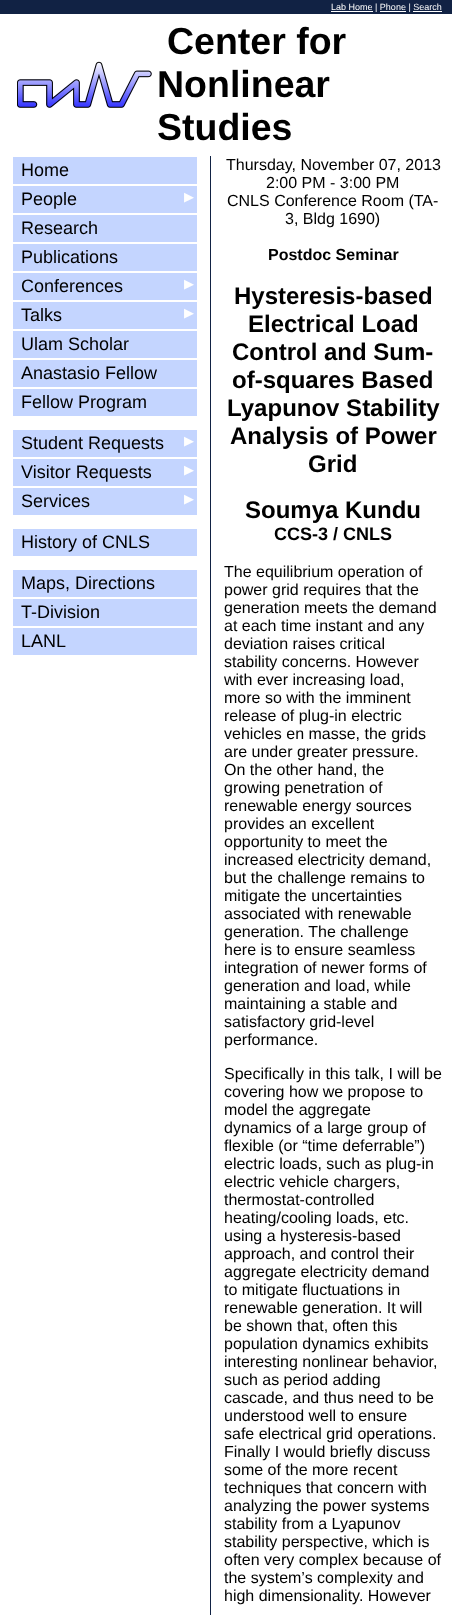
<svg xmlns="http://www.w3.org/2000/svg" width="452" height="1615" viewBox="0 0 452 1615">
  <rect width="100%" height="100%" fill="rgb(255,255,255)"/>
  <rect x="0" y="0" width="452" height="14" fill="rgb(17,34,68)"/>
  <rect x="331" y="11" width="42" height="1" fill="rgb(255,255,255)"/>
  <text x="331" y="10" font-family="Liberation Sans" font-size="9" fill="rgb(255,255,255)">Lab Home | Phone | Search</text>
  <rect x="380" y="11" width="26" height="1" fill="rgb(255,255,255)"/>
  <rect x="413" y="11" width="29" height="1" fill="rgb(255,255,255)"/>
  <image x="17" y="61" width="135" height="47" href="pic1.png"/>
  <g font-family="Liberation Sans" font-size="37.5" font-weight="bold" fill="rgb(0,0,0)">
    <text x="167" y="54">Center for</text>
    <text>
      <tspan x="157" y="97">Nonlinear</tspan>
      <tspan x="157" y="140">Studies</tspan>
    </text>
  </g>
  <rect x="13" y="157" width="184" height="27" fill="rgb(196,213,255)"/>
  <text x="21" y="176" font-family="Liberation Sans" font-size="18" fill="rgb(0,0,0)">Home</text>
  <rect x="13" y="186" width="184" height="27" fill="rgb(196,213,255)"/>
  <text x="21" y="205" font-family="Liberation Sans" font-size="18" fill="rgb(0,0,0)">People</text>
  <text x="184" y="201" font-family="DejaVu Sans" font-size="13" fill="rgb(255,255,255)">▶</text>
  <rect x="13" y="215" width="184" height="27" fill="rgb(196,213,255)"/>
  <text x="21" y="234" font-family="Liberation Sans" font-size="18" fill="rgb(0,0,0)">Research</text>
  <rect x="13" y="244" width="184" height="27" fill="rgb(196,213,255)"/>
  <text x="21" y="263" font-family="Liberation Sans" font-size="18" fill="rgb(0,0,0)">Publications</text>
  <rect x="13" y="273" width="184" height="27" fill="rgb(196,213,255)"/>
  <text x="21" y="292" font-family="Liberation Sans" font-size="18" fill="rgb(0,0,0)">Conferences</text>
  <text x="184" y="288" font-family="DejaVu Sans" font-size="13" fill="rgb(255,255,255)">▶</text>
  <rect x="13" y="302" width="184" height="27" fill="rgb(196,213,255)"/>
  <text x="21" y="321" font-family="Liberation Sans" font-size="18" fill="rgb(0,0,0)">Talks</text>
  <text x="184" y="317" font-family="DejaVu Sans" font-size="13" fill="rgb(255,255,255)">▶</text>
  <rect x="13" y="331" width="184" height="27" fill="rgb(196,213,255)"/>
  <text x="21" y="350" font-family="Liberation Sans" font-size="18" fill="rgb(0,0,0)">Ulam Scholar</text>
  <rect x="13" y="360" width="184" height="27" fill="rgb(196,213,255)"/>
  <text x="21" y="379" font-family="Liberation Sans" font-size="18" fill="rgb(0,0,0)">Anastasio Fellow</text>
  <rect x="13" y="389" width="184" height="27" fill="rgb(196,213,255)"/>
  <text x="21" y="408" font-family="Liberation Sans" font-size="18" fill="rgb(0,0,0)">Fellow Program</text>
  <rect x="13" y="430" width="184" height="27" fill="rgb(196,213,255)"/>
  <text x="21" y="449" font-family="Liberation Sans" font-size="18" fill="rgb(0,0,0)">Student Requests</text>
  <text x="184" y="445" font-family="DejaVu Sans" font-size="13" fill="rgb(255,255,255)">▶</text>
  <rect x="13" y="459" width="184" height="27" fill="rgb(196,213,255)"/>
  <text x="21" y="478" font-family="Liberation Sans" font-size="18" fill="rgb(0,0,0)">Visitor Requests</text>
  <text x="184" y="474" font-family="DejaVu Sans" font-size="13" fill="rgb(255,255,255)">▶</text>
  <rect x="13" y="488" width="184" height="27" fill="rgb(196,213,255)"/>
  <text x="21" y="507" font-family="Liberation Sans" font-size="18" fill="rgb(0,0,0)">Services</text>
  <text x="184" y="503" font-family="DejaVu Sans" font-size="13" fill="rgb(255,255,255)">▶</text>
  <rect x="13" y="529" width="184" height="27" fill="rgb(196,213,255)"/>
  <text x="21" y="548" font-family="Liberation Sans" font-size="18" fill="rgb(0,0,0)">History of CNLS</text>
  <rect x="13" y="570" width="184" height="27" fill="rgb(196,213,255)"/>
  <text x="21" y="589" font-family="Liberation Sans" font-size="18" fill="rgb(0,0,0)">Maps, Directions</text>
  <rect x="13" y="599" width="184" height="27" fill="rgb(196,213,255)"/>
  <text x="21" y="618" font-family="Liberation Sans" font-size="18" fill="rgb(0,0,0)">T-Division</text>
  <rect x="13" y="628" width="184" height="27" fill="rgb(196,213,255)"/>
  <text x="21" y="647" font-family="Liberation Sans" font-size="18" fill="rgb(0,0,0)">LANL</text>
  <rect x="210" y="156" width="1" height="1459" fill="rgb(17,34,68)"/>
  <g font-family="Liberation Sans" font-size="16" fill="rgb(0,0,0)">
    <text x="226" y="170">Thursday, November 07, 2013</text>
    <text x="266" y="188">2:00 PM - 3:00 PM</text>
    <text x="227" y="206">CNLS Conference Room (TA-</text>
    <text x="285" y="224">3, Bldg 1690)</text>
  </g>
  <text x="268" y="260" font-family="Liberation Sans" font-size="16" font-weight="bold" fill="rgb(0,0,0)">Postdoc Seminar</text>
  <g font-family="Liberation Sans" font-size="24" font-weight="bold" fill="rgb(0,0,0)">
    <text x="234" y="304">Hysteresis-based</text>
    <text x="248" y="332">Electrical Load</text>
    <text>
      <tspan x="232" y="360">Control and Sum-</tspan>
      <tspan x="232" y="388">of-squares Based</tspan>
    </text>
    <text x="227" y="416">Lyapunov Stability</text>
    <text x="230" y="444">Analysis of Power</text>
    <text x="308" y="472">Grid</text>
    <text x="245" y="518">Soumya Kundu</text>
  </g>
  <text x="274" y="540" font-family="Liberation Sans" font-size="18" font-weight="bold" fill="rgb(0,0,0)">CCS-3 / CNLS</text>
  <g font-family="Liberation Sans" font-size="16" fill="rgb(0,0,0)">
    <text>
      <tspan x="224" y="577">The equilibrium operation of</tspan>
      <tspan x="224" y="595">power grid requires that the</tspan>
      <tspan x="224" y="613">generation meets the demand</tspan>
      <tspan x="224" y="631">at each time instant and any</tspan>
      <tspan x="224" y="649">deviation raises critical</tspan>
      <tspan x="224" y="667">stability concerns. However</tspan>
      <tspan x="224" y="685">with ever increasing load,</tspan>
      <tspan x="224" y="703">more so with the imminent</tspan>
      <tspan x="224" y="721">release of plug-in electric</tspan>
      <tspan x="224" y="739">vehicles en masse, the grids</tspan>
      <tspan x="224" y="757">are under greater pressure.</tspan>
      <tspan x="224" y="775">On the other hand, the</tspan>
      <tspan x="224" y="793">growing penetration of</tspan>
      <tspan x="224" y="811">renewable energy sources</tspan>
      <tspan x="224" y="829">provides an excellent</tspan>
      <tspan x="224" y="847">opportunity to meet the</tspan>
      <tspan x="224" y="865">increased electricity demand,</tspan>
      <tspan x="224" y="883">but the challenge remains to</tspan>
      <tspan x="224" y="901">mitigate the uncertainties</tspan>
      <tspan x="224" y="919">associated with renewable</tspan>
      <tspan x="224" y="937">generation. The challenge</tspan>
      <tspan x="224" y="955">here is to ensure seamless</tspan>
      <tspan x="224" y="973">integration of newer forms of</tspan>
      <tspan x="224" y="991">generation and load, while</tspan>
      <tspan x="224" y="1009">maintaining a stable and</tspan>
      <tspan x="224" y="1027">satisfactory grid-level</tspan>
      <tspan x="224" y="1045">performance.</tspan>
    </text>
    <text>
      <tspan x="224" y="1079">Specifically in this talk, I will be</tspan>
      <tspan x="224" y="1097">covering how we propose to</tspan>
      <tspan x="224" y="1115">model the aggregate</tspan>
      <tspan x="224" y="1133">dynamics of a large group of</tspan>
      <tspan x="224" y="1151">flexible (or “time deferrable”)</tspan>
      <tspan x="224" y="1169">electric loads, such as plug-in</tspan>
      <tspan x="224" y="1187">electric vehicle chargers,</tspan>
      <tspan x="224" y="1205">thermostat-controlled</tspan>
      <tspan x="224" y="1223">heating/cooling loads, etc.</tspan>
      <tspan x="224" y="1241">using a hysteresis-based</tspan>
      <tspan x="224" y="1259">approach, and control their</tspan>
      <tspan x="224" y="1277">aggregate electricity demand</tspan>
      <tspan x="224" y="1295">to mitigate fluctuations in</tspan>
      <tspan x="224" y="1313">renewable generation. It will</tspan>
      <tspan x="224" y="1331">be shown that, often this</tspan>
      <tspan x="224" y="1349">population dynamics exhibits</tspan>
      <tspan x="224" y="1367">interesting nonlinear behavior,</tspan>
      <tspan x="224" y="1385">such as period adding</tspan>
      <tspan x="224" y="1403">cascade, and thus need to be</tspan>
      <tspan x="224" y="1421">understood well to ensure</tspan>
      <tspan x="224" y="1439">safe electrical grid operations.</tspan>
      <tspan x="224" y="1457">Finally I would briefly discuss</tspan>
      <tspan x="224" y="1475">some of the more recent</tspan>
      <tspan x="224" y="1493">techniques that concern with</tspan>
      <tspan x="224" y="1511">analyzing the power systems</tspan>
      <tspan x="224" y="1529">stability from a Lyapunov</tspan>
      <tspan x="224" y="1547">stability perspective, which is</tspan>
      <tspan x="224" y="1565">often very complex because of</tspan>
      <tspan x="224" y="1583">the system’s complexity and</tspan>
      <tspan x="224" y="1601">high dimensionality. However</tspan>
    </text>
  </g>
</svg>
